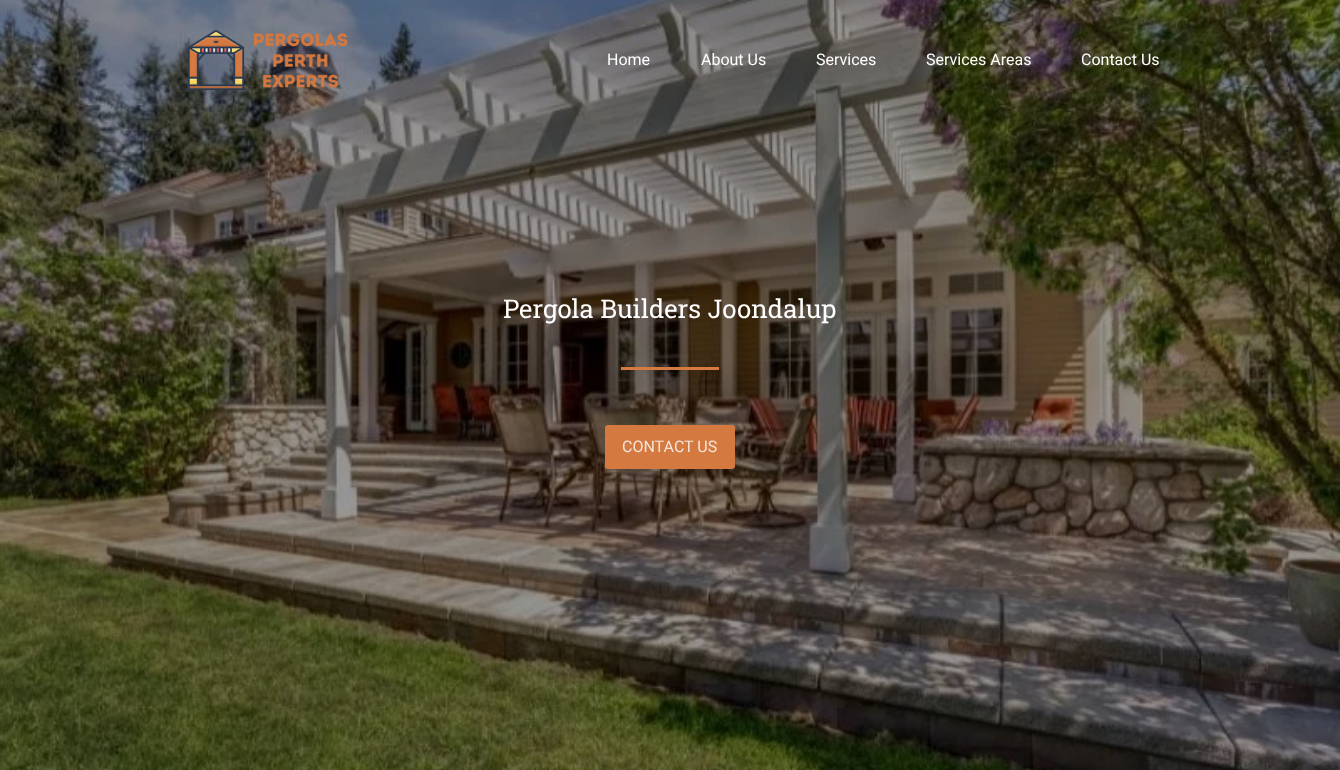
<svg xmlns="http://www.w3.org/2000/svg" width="1340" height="770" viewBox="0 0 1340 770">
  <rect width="100%" height="100%" fill="rgb(255,255,255)"/>
  <image x="0" y="0" width="1340" height="770" href="pic2.png"/>
  <image x="186" y="30" width="162" height="60" href="pic1.png"/>
  <g font-family="Roboto" font-size="16" fill="rgb(255,255,255)">
    <text x="607" y="65">Home</text>
    <text x="701" y="65">About Us</text>
    <text x="816" y="65">Services</text>
    <text x="926" y="65">Services Areas</text>
    <text x="1081" y="65">Contact Us</text>
  </g>
  <text x="503" y="318" font-family="Roboto Slab" font-size="25.8" fill="rgb(255,255,255)">Pergola Builders Joondalup</text>
  <rect x="621" y="367" width="98" height="3" fill="rgb(213,122,64)"/>
  <rect x="605" y="425" width="130" height="44" rx="3" fill="rgb(212,121,64)"/>
  <text x="622" y="452" font-family="Roboto" font-size="16" fill="rgb(246,228,217)">CONTACT US</text>
</svg>
